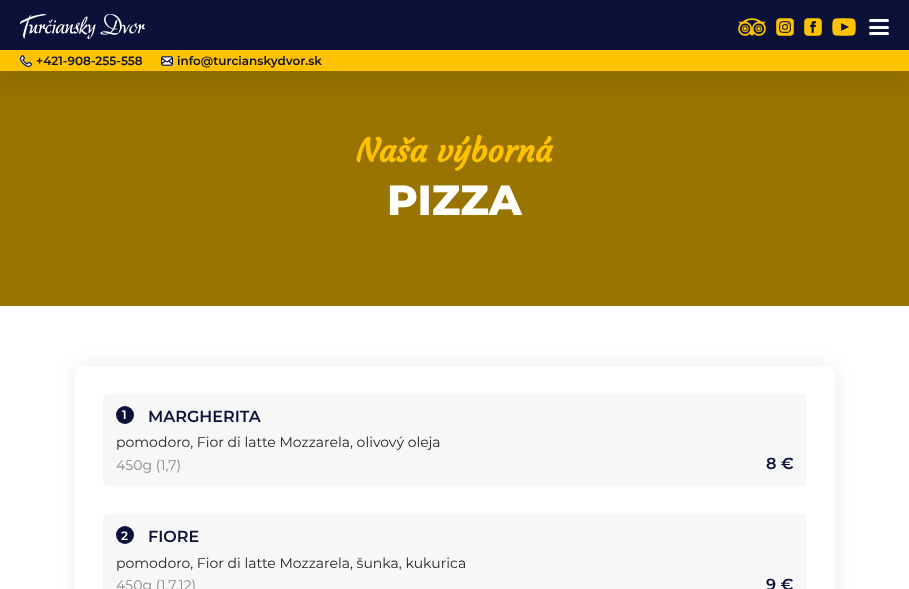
<svg xmlns="http://www.w3.org/2000/svg" width="909" height="589" viewBox="0 0 909 589">
  <rect width="100%" height="100%" fill="rgb(255,255,255)"/>
  <rect x="0" y="0" width="909" height="50" fill="rgb(11,17,57)"/>
  <rect x="0" y="71" width="909" height="235" fill="rgb(153,116,0)"/>
  <rect x="-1" y="59" width="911" height="23" fill="rgba(0,0,0,0.1)" filter="blur(12.5px)"/>
  <image x="20" y="14" width="125" height="25" href="pic1.png"/>
  <image x="738" y="18" width="28" height="18" href="pic2.png"/>
  <image x="776" y="18" width="18" height="18" href="pic3.png"/>
  <image x="804" y="18" width="18" height="18" href="pic4.png"/>
  <image x="832" y="18" width="24" height="18" href="pic5.png"/>
  <rect x="869" y="19" width="20" height="3" rx="1.5" fill="rgb(255,255,255)"/>
  <rect x="869" y="26" width="20" height="3" rx="1.5" fill="rgb(255,255,255)"/>
  <rect x="869" y="32" width="20" height="3" rx="1.5" fill="rgb(255,255,255)"/>
  <rect x="0" y="50" width="909" height="21" fill="rgb(255,194,0)"/>
  <image x="20" y="55" width="12" height="12" href="pic6.png"/>
  <text x="36" y="65" font-family="Montserrat" font-size="12" font-weight="600" fill="rgb(11,17,57)">+421-908-255-558</text>
  <image x="161" y="56" width="12" height="10" href="pic7.png"/>
  <text x="177" y="65" font-family="Montserrat" font-size="12" font-weight="600" fill="rgb(11,17,57)">info@turcianskydvor.sk</text>
  <text x="356" y="162" font-family="Courgette" font-size="32" font-weight="bold" fill="rgb(255,194,0)">Naša výborná</text>
  <text x="387" y="215" font-family="Montserrat" font-size="42" font-weight="800" fill="rgb(255,255,255)">PIZZA</text>
  <rect x="75" y="366" width="760" height="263" rx="10" fill="rgba(0,0,0,0.08)" filter="blur(10px)"/>
  <rect x="75" y="366" width="760" height="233" rx="10" fill="rgb(255,255,255)"/>
  <rect x="103" y="394" width="704" height="92" rx="5" fill="rgb(247,247,247)"/>
  <circle cx="125" cy="415" r="9" fill="rgb(11,17,57)"/>
  <text x="122" y="419" font-family="Montserrat" font-size="12" font-weight="600" fill="rgb(255,255,255)">1</text>
  <text x="148" y="422" font-family="Montserrat" font-size="16" font-weight="600" fill="rgb(11,17,57)">MARGHERITA</text>
  <text x="116" y="447" font-family="Montserrat" font-size="14" fill="rgb(31,31,31)">pomodoro, Fior di latte Mozzarela, olivový oleja</text>
  <text x="116" y="470" font-family="Montserrat" font-size="14" fill="rgb(139,139,139)">450g (1,7)</text>
  <text x="766" y="469" font-family="Montserrat" font-size="16" font-weight="600" fill="rgb(11,17,57)">8 €</text>
  <rect x="103" y="514" width="704" height="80" rx="5" fill="rgb(247,247,247)"/>
  <circle cx="125" cy="535" r="9" fill="rgb(11,17,57)"/>
  <text x="121" y="540" font-family="Montserrat" font-size="12" font-weight="600" fill="rgb(255,255,255)">2</text>
  <text x="148" y="542" font-family="Montserrat" font-size="16" font-weight="600" fill="rgb(11,17,57)">FIORE</text>
  <text x="116" y="568" font-family="Montserrat" font-size="14" fill="rgb(31,31,31)">pomodoro, Fior di latte Mozzarela, šunka, kukurica</text>
  <text x="116" y="590" font-family="Montserrat" font-size="14" fill="rgb(139,139,139)">450g (1,7,12)</text>
  <text x="766" y="590" font-family="Montserrat" font-size="16" font-weight="600" fill="rgb(11,17,57)">9 €</text>
</svg>
